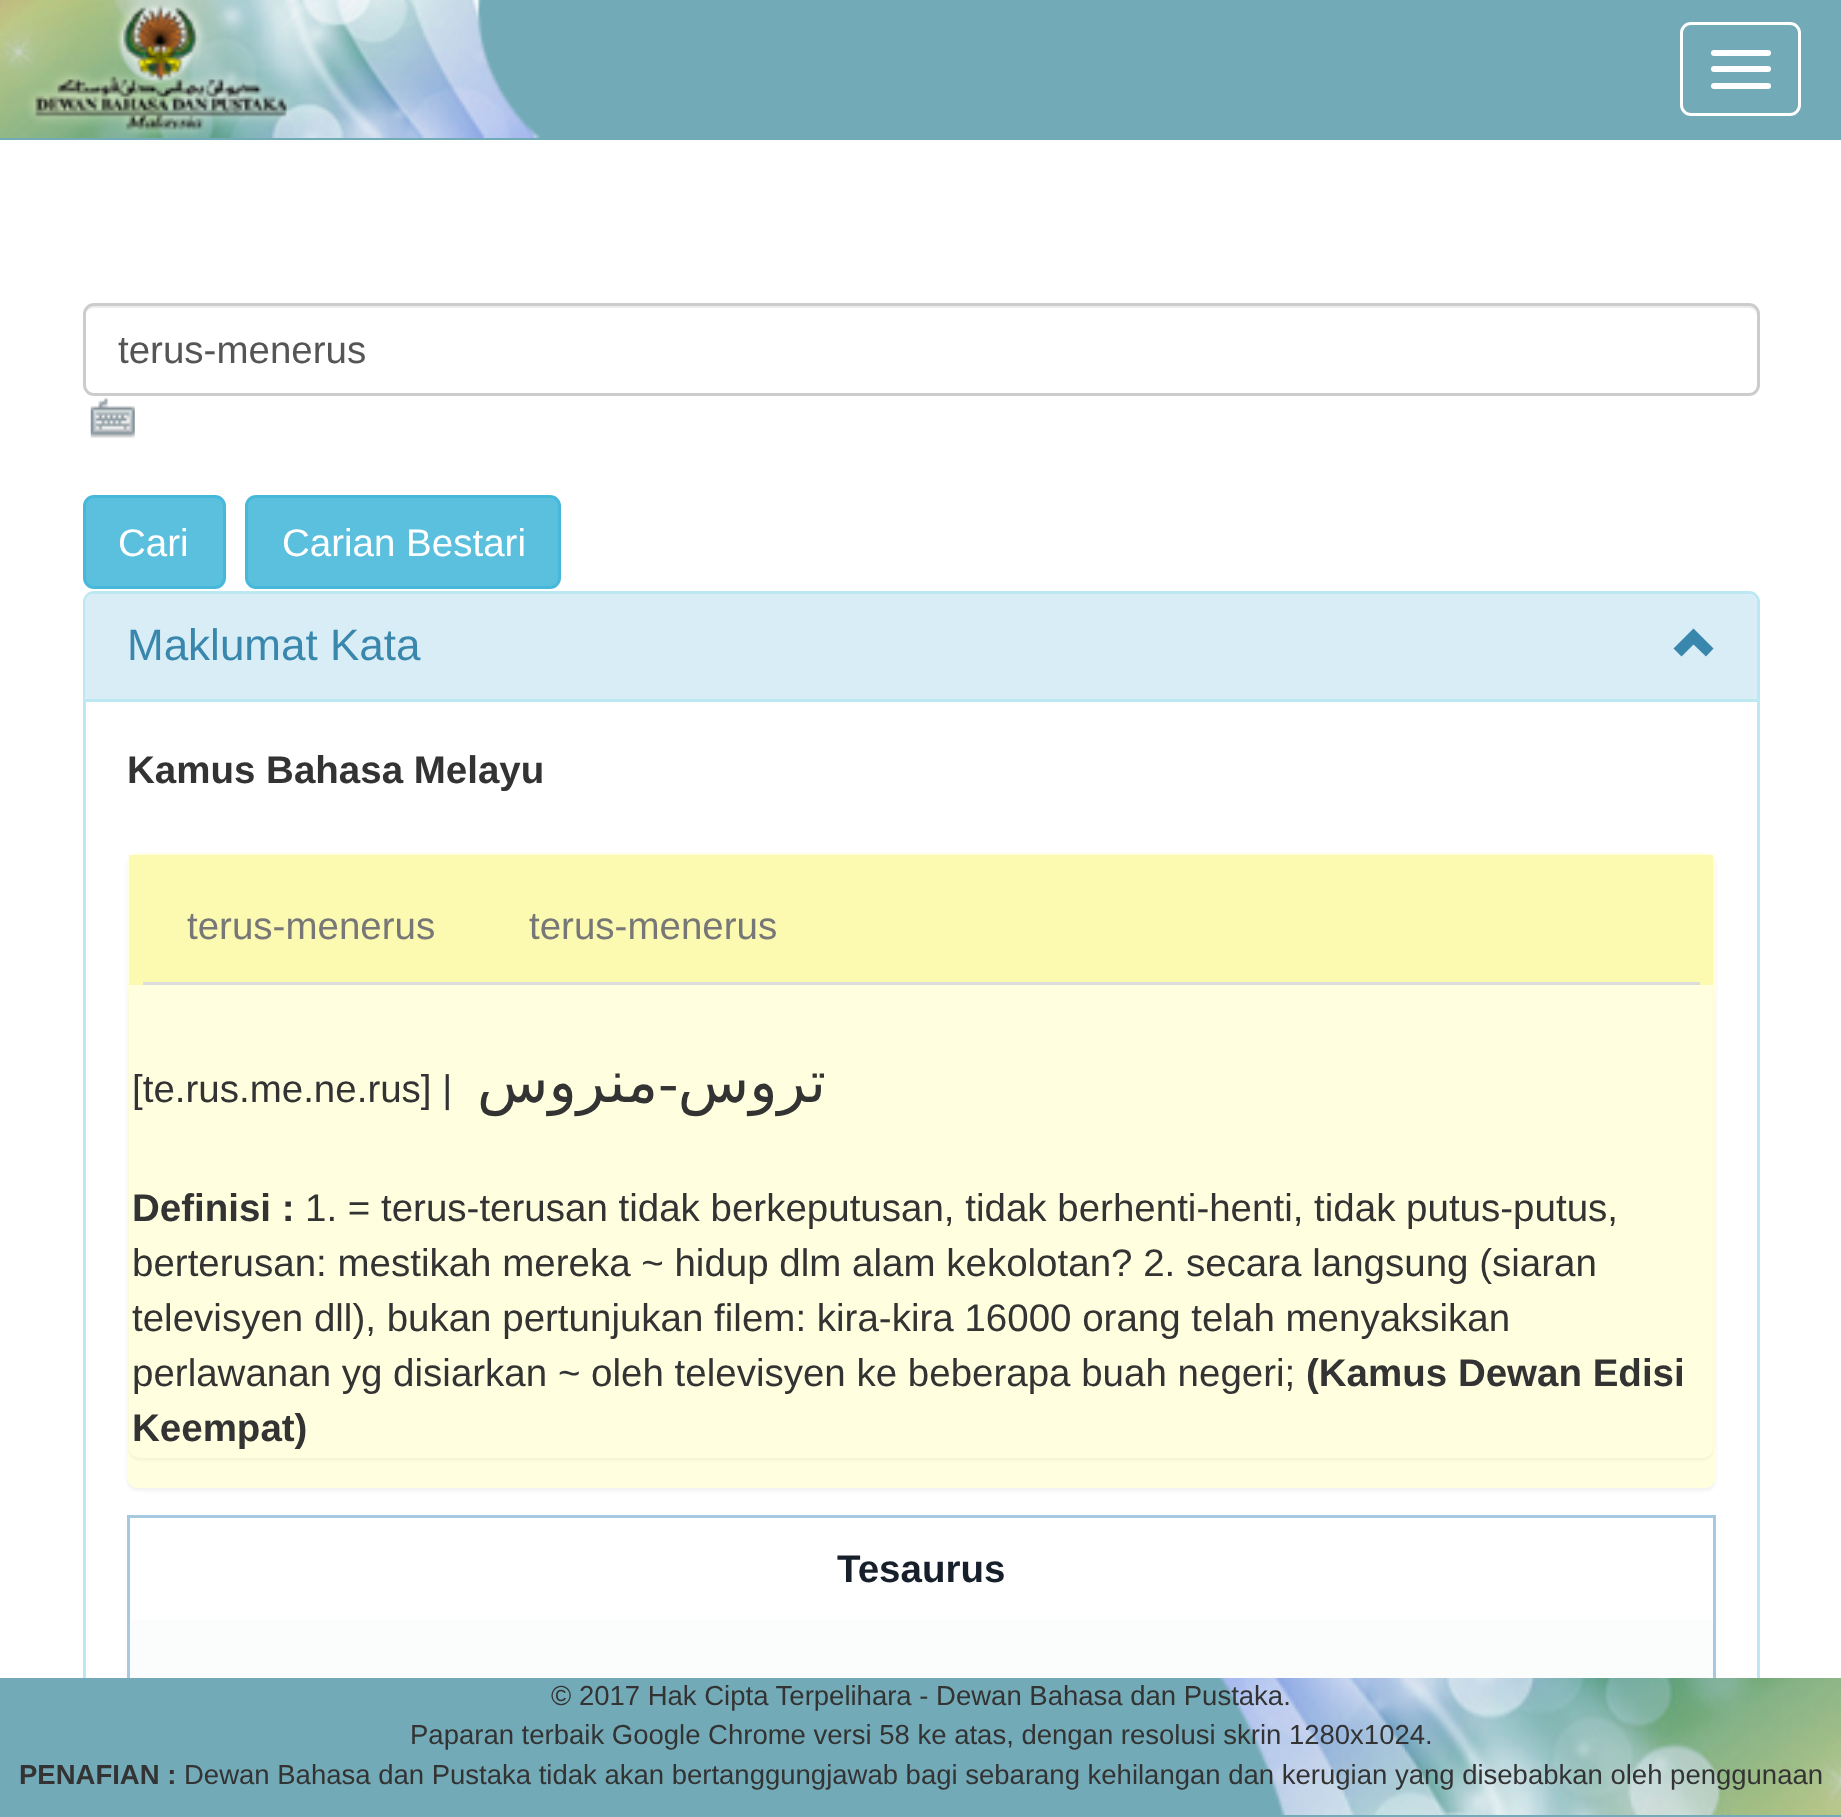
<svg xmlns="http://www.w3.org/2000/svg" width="1841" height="1817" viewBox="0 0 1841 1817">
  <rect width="100%" height="100%" fill="rgb(255,255,255)"/>
  <rect x="0" y="0" width="1841" height="140" fill="rgb(115,170,183)"/>
  <image x="0" y="0" width="540" height="138" href="pic1.png"/>
  <rect x="1681.5" y="23.5" width="118" height="91" rx="9.5" fill="none" stroke="rgb(255,255,255)" stroke-width="3"/>
  <rect x="1711" y="50" width="60" height="6" rx="3" fill="rgb(255,255,255)"/>
  <rect x="1711" y="66" width="60" height="6" rx="3" fill="rgb(255,255,255)"/>
  <rect x="1711" y="83" width="60" height="6" rx="3" fill="rgb(255,255,255)"/>
  <path d="M94 308H1749C1754 308 1757 312 1757 316V313C1757 309 1753 305 1749 305H93C89 305 85 309 85 313V316C85 312 89 308 94 308Z" fill="rgb(236,236,236)"/>
  <rect x="84.5" y="304.5" width="1674" height="90" rx="9.5" fill="none" stroke="rgb(204,204,204)" stroke-width="3"/>
  <text x="118" y="363" font-family="Liberation Sans" font-size="38.5" fill="rgb(85,85,85)">terus-menerus</text>
  <image x="90" y="398" width="45" height="40" href="pic2.png"/>
  <rect x="84.5" y="496.5" width="140" height="91" rx="9.5" fill="rgb(91,192,222)" stroke="rgb(70,184,218)" stroke-width="3"/>
  <text x="118" y="556" font-family="Liberation Sans" font-size="38.5" fill="rgb(255,255,255)">Cari</text>
  <rect x="246.5" y="496.5" width="313" height="91" rx="9.5" fill="rgb(91,192,222)" stroke="rgb(70,184,218)" stroke-width="3"/>
  <text x="282" y="556" font-family="Liberation Sans" font-size="38.5" fill="rgb(255,255,255)">Carian Bestari</text>
  <rect x="84.5" y="592.5" width="1674" height="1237" rx="9.5" fill="none" stroke="rgb(188,232,241)" stroke-width="3"/>
  <path d="M93 594H1749C1753.5 594 1757 597.5 1757 602V701H85V602C85 597.5 88.5 594 93 594Z" fill="rgb(217,237,247)"/>
  <rect x="85" y="699" width="1672" height="3" fill="rgb(188,232,241)"/>
  <text x="127" y="660" font-family="Liberation Sans" font-size="44" fill="rgb(58,135,173)">Maklumat Kata</text>
  <path d="M1706 656.5L1713.5 648.5L1693.5 628.5L1673.5 648.5L1681.5 656.5L1693.5 644.5Z" fill="rgb(58,135,173)"/>
  <text x="127" y="783" font-family="Liberation Sans" font-size="38.5" font-weight="bold" fill="rgb(51,51,51)">Kamus Bahasa Melayu</text>
  <rect x="127" y="855" width="1589" height="636" rx="11" fill="rgba(0,0,0,0.05)" filter="blur(1.5px)"/>
  <rect x="127" y="853" width="1589" height="635" rx="11" fill="rgb(255,255,224)"/>
  <rect x="129" y="855" width="1584" height="130" fill="rgb(252,249,176)"/>
  <rect x="143" y="982" width="1557" height="3" fill="rgb(221,221,221)"/>
  <g font-family="Liberation Sans" font-size="38.5" fill="rgb(119,119,119)">
    <text x="187" y="939">terus-menerus</text>
    <text x="529" y="939">terus-menerus</text>
  </g>
  <rect x="129" y="987" width="1584" height="473" rx="11" fill="rgba(0,0,0,0.05)" filter="blur(1.5px)"/>
  <rect x="129" y="985" width="1584" height="473" rx="11" fill="rgb(255,255,224)"/>
  <text x="132" y="1102" font-family="Liberation Sans" font-size="38.5" fill="rgb(51,51,51)">[te.rus.me.ne.rus] |</text>
  <text x="658" y="1102" font-family="DejaVu Sans" font-size="58.5" direction="rtl" fill="rgb(51,51,51)">منروس</text>
  <text x="678" y="1102" font-family="Liberation Serif" font-size="58.5" direction="rtl" fill="rgb(51,51,51)">-</text>
  <text x="826" y="1102" font-family="DejaVu Sans" font-size="58.5" direction="rtl" fill="rgb(51,51,51)">تروس</text>
  <text x="132" y="1221" font-family="Liberation Sans" font-size="38.5" font-weight="bold" fill="rgb(51,51,51)">Definisi :</text>
  <g font-family="Liberation Sans" font-size="38.5" fill="rgb(51,51,51)">
    <text x="305" y="1221">1. = terus-terusan tidak berkeputusan, tidak berhenti-henti, tidak putus-putus,</text>
    <text>
      <tspan x="132" y="1276">berterusan: mestikah mereka ~ hidup dlm alam kekolotan? 2. secara langsung (siaran</tspan>
      <tspan x="132" y="1331">televisyen dll), bukan pertunjukan filem: kira-kira 16000 orang telah menyaksikan</tspan>
      <tspan x="132" y="1386">perlawanan yg disiarkan ~ oleh televisyen ke beberapa buah negeri;</tspan>
    </text>
  </g>
  <g font-family="Liberation Sans" font-size="38.5" font-weight="bold" fill="rgb(51,51,51)">
    <text x="1306" y="1386">(Kamus Dewan Edisi</text>
    <text x="132" y="1441">Keempat)</text>
  </g>
  <rect x="127" y="1515" width="1589" height="3" fill="rgb(166,201,226)"/>
  <rect x="1713" y="1515" width="3" height="163" fill="rgb(166,201,226)"/>
  <rect x="127" y="1515" width="3" height="163" fill="rgb(166,201,226)"/>
  <text x="837" y="1582" font-family="Liberation Sans" font-size="38.5" font-weight="bold" fill="rgb(23,32,42)">Tesaurus</text>
  <rect x="130" y="1620" width="1583" height="58" fill="rgb(251,252,252)"/>
  <rect x="0" y="1678" width="1841" height="139" fill="rgb(115,170,183)"/>
  <image x="1219" y="1678" width="622" height="137" href="pic3.png"/>
  <g font-family="Liberation Sans" font-size="27.5" fill="rgb(51,51,51)">
    <text x="551" y="1705">© 2017 Hak Cipta Terpelihara - Dewan Bahasa dan Pustaka.</text>
    <text x="410" y="1744">Paparan terbaik Google Chrome versi 58 ke atas, dengan resolusi skrin 1280x1024.</text>
  </g>
  <text x="19" y="1784" font-family="Liberation Sans" font-size="27.5" font-weight="bold" fill="rgb(51,51,51)">PENAFIAN :</text>
  <text x="184" y="1784" font-family="Liberation Sans" font-size="27.5" fill="rgb(51,51,51)">Dewan Bahasa dan Pustaka tidak akan bertanggungjawab bagi sebarang kehilangan dan kerugian yang disebabkan oleh penggunaan</text>
</svg>
